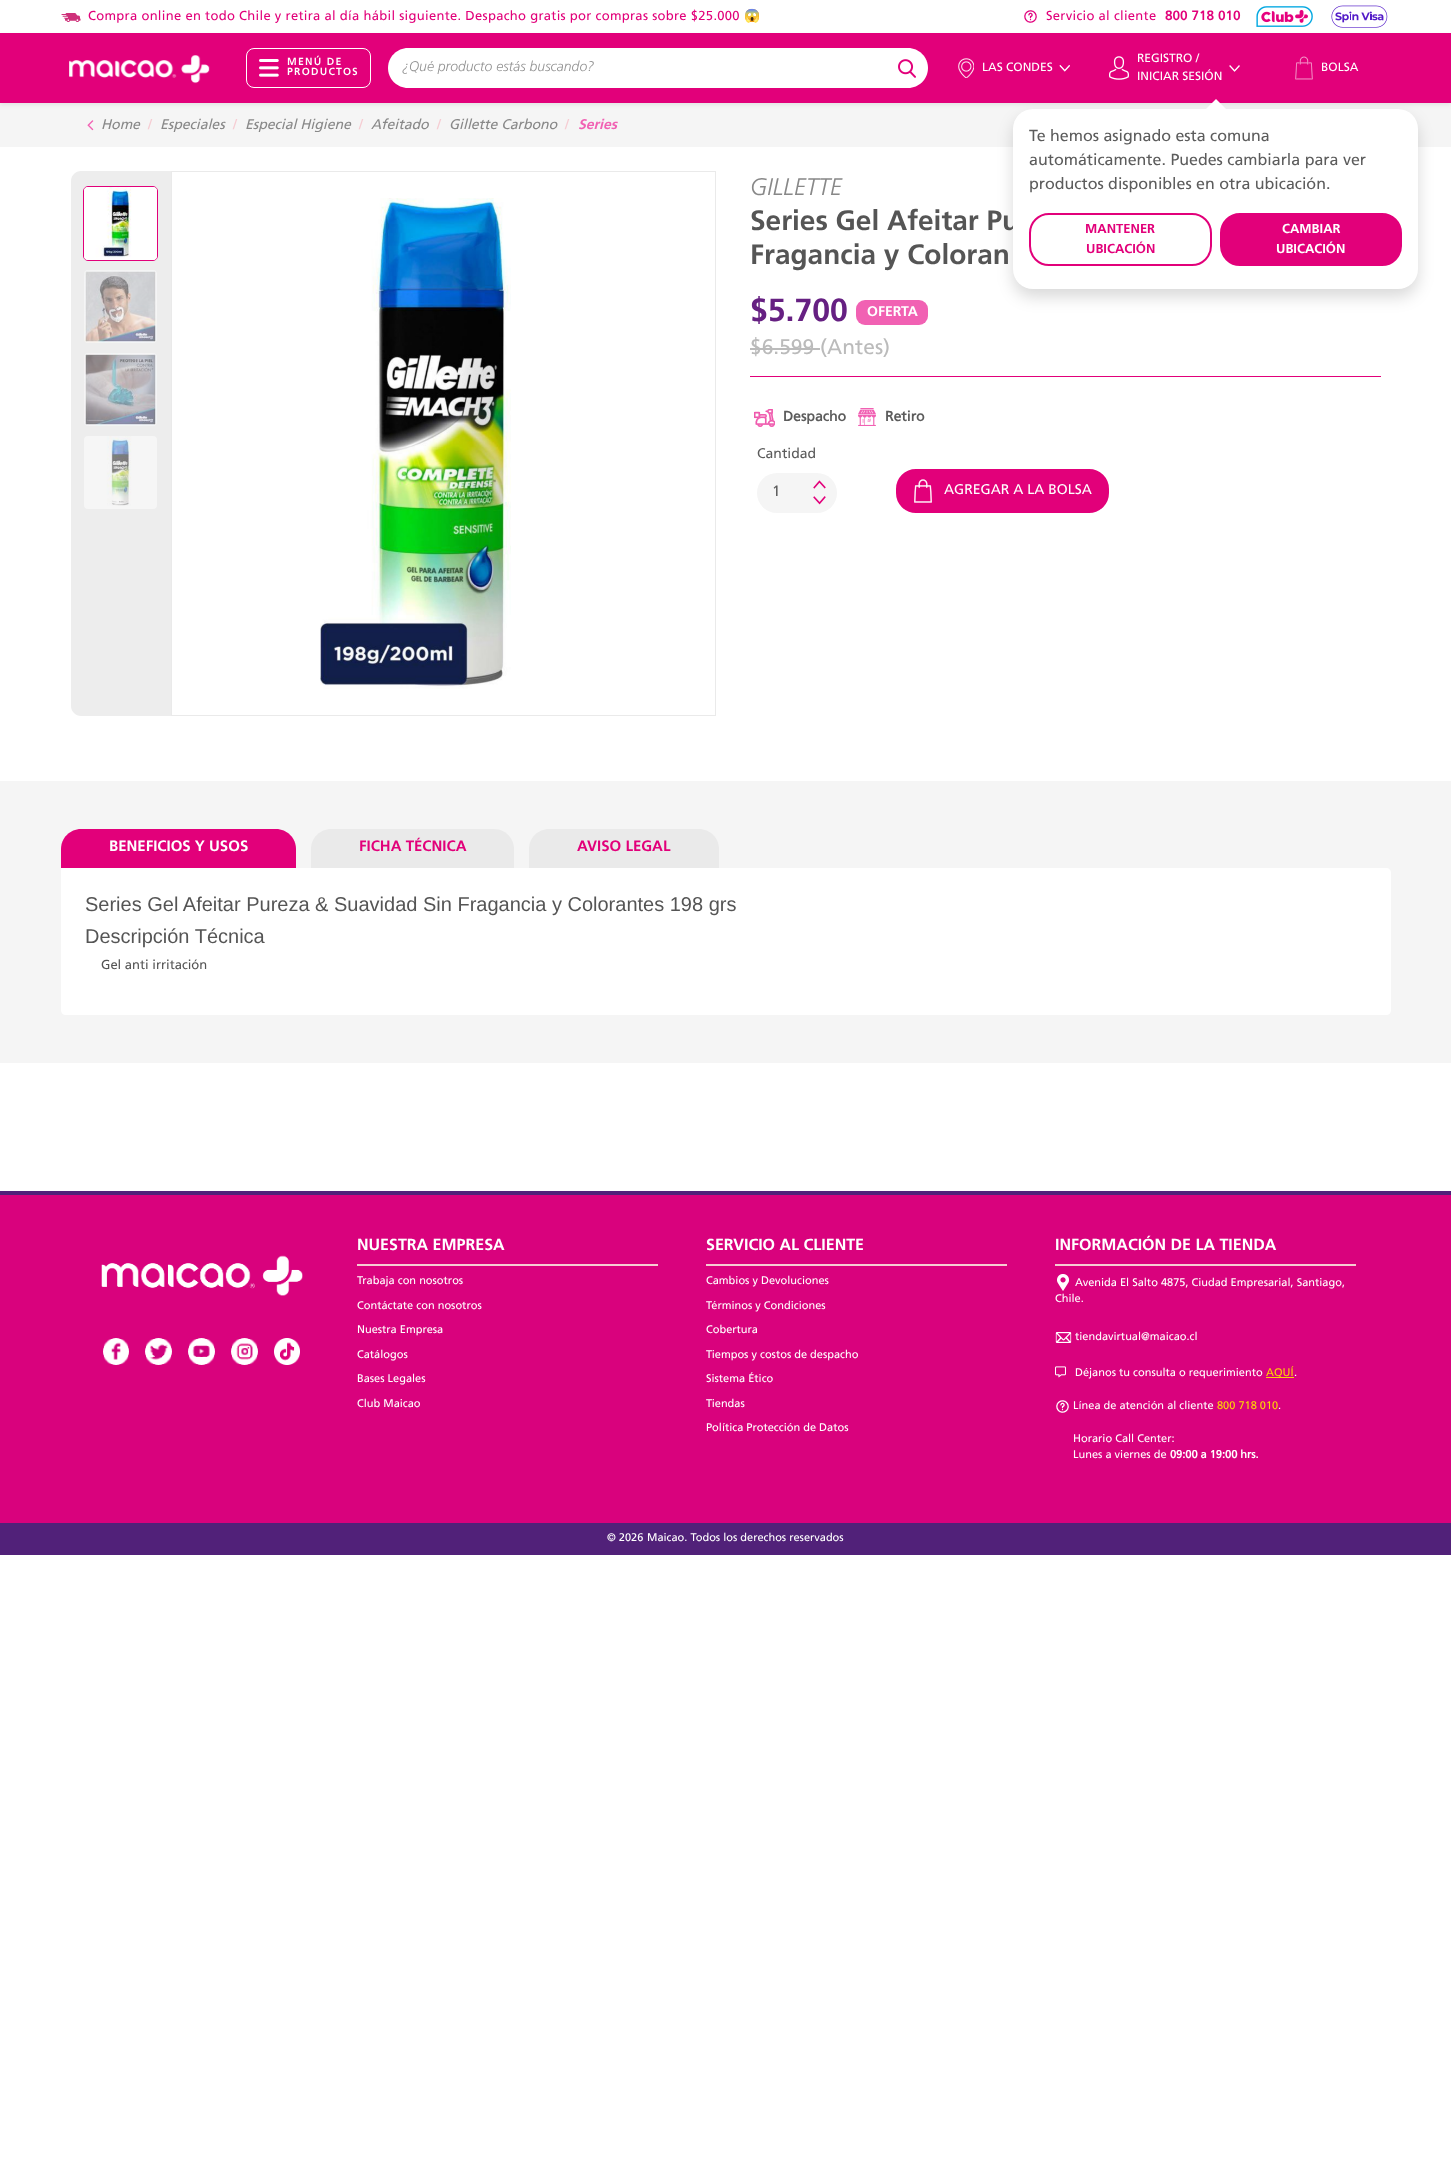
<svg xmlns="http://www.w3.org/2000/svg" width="1451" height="2170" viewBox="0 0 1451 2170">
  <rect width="100%" height="100%" fill="rgb(255,255,255)"/>
  <image x="61" y="13" width="20" height="9" href="pic1.png"/>
  <text x="88" y="20" font-family="Frutiger" font-size="13" letter-spacing="0.3" fill="rgb(226,0,122)">Compra online en todo Chile y retira al día hábil siguiente. Despacho gratis por compras sobre $25.000</text>
  <text x="744" y="20" font-family="Noto Color Emoji" font-size="13" letter-spacing="0.3" fill="rgb(226,0,122)">😱</text>
  <image x="1024" y="10" width="13" height="13" href="pic2.png"/>
  <text x="1046" y="20" font-family="Frutiger" font-size="13" letter-spacing="0.3" fill="rgb(226,0,122)">Servicio al cliente</text>
  <text x="1165" y="20" font-family="'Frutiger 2'" font-size="13" font-weight="bold" letter-spacing="0.3" fill="rgb(226,0,122)">800 718 010</text>
  <image x="1256" y="6" width="57" height="21" href="pic3.png"/>
  <image x="1331" y="5" width="57" height="23" href="pic4.png"/>
  <rect x="0" y="103" width="1451" height="44" fill="rgb(245,245,245)"/>
  <rect x="0" y="35" width="1451" height="70" fill="rgba(0,0,0,0.07)" filter="blur(2px)"/>
  <rect x="0" y="33" width="1451" height="70" fill="rgb(226,0,122)"/>
  <image x="69" y="55" width="141" height="29" href="pic5.png"/>
  <rect x="246.5" y="48.5" width="124" height="39" rx="7.5" fill="none" stroke="rgb(255,255,255)"/>
  <image x="259" y="59" width="20" height="18" href="pic6.png"/>
  <g font-family="'Frutiger 2'" font-size="10" font-weight="bold" letter-spacing="1.5" fill="rgb(255,255,255)">
    <text>
      <tspan x="287" y="65">MENÚ DE</tspan>
      <tspan x="287" y="75">PRODUCTOS</tspan>
    </text>
  </g>
  <path d="M408 48H892V88H408C397 88 388 79 388 68C388 57 397 48 408 48Z" fill="rgb(255,255,255)"/>
  <text x="402" y="71" font-family="Frutiger" font-size="14" font-weight="300" font-style="italic" fill="rgb(147,147,147)">¿Qué producto estás buscando?</text>
  <path d="M892 48H908C919 48 928 57 928 68C928 79 919 88 908 88H892Z" fill="rgb(255,255,255)"/>
  <image x="898" y="59" width="18" height="19" href="pic7.png"/>
  <image x="1109" y="56" width="20" height="24" href="pic8.png"/>
  <g font-family="Frutiger" font-size="12" fill="rgb(255,255,255)">
    <text>
      <tspan x="1137" y="62">REGISTRO /</tspan>
      <tspan x="1137" y="80">INICIAR SESIÓN</tspan>
    </text>
  </g>
  <image x="1229" y="65" width="11" height="7" href="pic9.png"/>
  <image x="958" y="58" width="16" height="20" href="pic10.png"/>
  <text x="982" y="71" font-family="Frutiger" font-size="12" fill="rgb(255,255,255)">LAS CONDES</text>
  <image x="1059" y="64" width="11" height="8" href="pic11.png"/>
  <rect x="1013" y="117" width="405" height="180" rx="20" fill="rgba(0,0,0,0.15)" filter="blur(8px)"/>
  <text x="750" y="230" font-family="Frutiger" font-size="28" font-weight="bold" fill="rgb(85,85,85)">Series Gel Afeitar Pu</text>
  <rect x="1013" y="109" width="405" height="180" rx="20" fill="rgb(255,255,255)"/>
  <path d="M1226 109H1206L1216 99Z" fill="rgb(255,255,255)"/>
  <g font-family="Frutiger" font-size="16" fill="rgb(92,92,92)">
    <text>
      <tspan x="1029" y="141">Te hemos asignado esta comuna</tspan>
      <tspan x="1029" y="165">automáticamente. Puedes cambiarla para ver</tspan>
      <tspan x="1029" y="189">productos disponibles en otra ubicación.</tspan>
    </text>
  </g>
  <rect x="1030" y="214" width="181" height="51" rx="19" fill="none" stroke="rgb(226,0,122)" stroke-width="2"/>
  <g font-family="Frutiger" font-size="13" font-weight="bold" fill="rgb(226,0,122)">
    <text x="1085" y="233">MANTENER</text>
    <text x="1086" y="253">UBICACIÓN</text>
  </g>
  <rect x="1221" y="214" width="180" height="51" rx="19" fill="rgb(226,0,122)" stroke="rgb(226,0,122)" stroke-width="2"/>
  <g font-family="Frutiger" font-size="13" font-weight="bold" fill="rgb(255,255,255)">
    <text x="1282" y="233">CAMBIAR</text>
    <text x="1276" y="253">UBICACIÓN</text>
  </g>
  <image x="1295" y="56" width="18" height="24" href="pic12.png"/>
  <text x="1321" y="71" font-family="Frutiger" font-size="12" fill="rgb(255,255,255)">BOLSA</text>
  <image x="87" y="120" width="7" height="11" href="pic13.png"/>
  <text x="101" y="129" font-family="Frutiger" font-size="14" font-style="italic" fill="rgb(136,136,136)">Home</text>
  <text x="148" y="129" font-family="Frutiger" font-size="14" fill="rgb(246,204,210)">/</text>
  <text x="160" y="129" font-family="Frutiger" font-size="14" font-style="italic" fill="rgb(136,136,136)">Especiales</text>
  <text x="233" y="129" font-family="Frutiger" font-size="14" fill="rgb(246,204,210)">/</text>
  <text x="245" y="129" font-family="Frutiger" font-size="14" font-style="italic" fill="rgb(136,136,136)">Especial Higiene</text>
  <text x="359" y="129" font-family="Frutiger" font-size="14" fill="rgb(246,204,210)">/</text>
  <text x="371" y="129" font-family="Frutiger" font-size="14" font-style="italic" fill="rgb(136,136,136)">Afeitado</text>
  <text x="437" y="129" font-family="Frutiger" font-size="14" fill="rgb(246,204,210)">/</text>
  <text x="449" y="129" font-family="Frutiger" font-size="14" font-style="italic" fill="rgb(136,136,136)">Gillette Carbono</text>
  <text x="565" y="129" font-family="Frutiger" font-size="14" fill="rgb(246,204,210)">/</text>
  <text x="578" y="129" font-family="Frutiger" font-size="14" font-weight="bold" font-style="italic" fill="rgb(241,97,179)">Series</text>
  <path d="M81 171H171V716H81C75.5 716 71 711.5 71 706V181C71 175.5 75.5 171 81 171Z" fill="rgb(237,237,237)"/>
  <rect x="83.5" y="186.5" width="74" height="74" rx="4.5" fill="none" stroke="rgb(226,0,122)"/>
  <image x="84" y="187" width="73" height="73" href="pic14.png"/>
  <image x="84" y="270" width="73" height="73" href="pic15.png"/>
  <image x="84" y="353" width="73" height="73" href="pic16.png"/>
  <image x="84" y="436" width="73" height="73" href="pic17.png"/>
  <rect x="171.5" y="171.5" width="544" height="544" fill="none" stroke="rgb(234,234,234)"/>
  <image x="320" y="198" width="191" height="491" href="pic18.png"/>
  <text x="750" y="195" font-family="Frutiger" font-size="24" font-weight="300" font-style="italic" fill="rgb(136,136,136)">GILLETTE</text>
  <text x="750" y="264" font-family="Frutiger" font-size="28" font-weight="bold" fill="rgb(85,85,85)">Fragancia y Coloran</text>
  <text x="750" y="321" font-family="Frutiger" font-size="32" font-weight="bold" fill="rgb(102,32,130)">$5.700</text>
  <rect x="856" y="300" width="72" height="25" rx="9" fill="rgb(241,97,179)"/>
  <text x="867" y="316" font-family="Frutiger" font-size="14" font-weight="bold" fill="rgb(255,255,255)">OFERTA</text>
  <text x="750" y="354" font-family="Frutiger" font-size="21" fill="rgb(187,187,187)">$6.599 (Antes)</text>
  <rect x="750" y="348" width="70" height="2" fill="rgb(187,187,187)"/>
  <rect x="750" y="376" width="631" height="1" fill="rgb(226,0,122)"/>
  <image x="754" y="409" width="21" height="18" href="pic19.png"/>
  <text x="783" y="421" font-family="'Frutiger 2'" font-size="14" font-weight="bold" fill="rgb(92,92,92)">Despacho</text>
  <image x="858" y="408" width="18" height="18" href="pic20.png"/>
  <text x="885" y="421" font-family="'Frutiger 2'" font-size="14" font-weight="bold" fill="rgb(92,92,92)">Retiro</text>
  <text x="757" y="458" font-family="Frutiger" font-size="14" fill="rgb(92,92,92)">Cantidad</text>
  <rect x="757" y="473" width="80" height="40" rx="20" fill="rgb(245,245,245)"/>
  <image x="813" y="480" width="13" height="25" href="pic21.png"/>
  <text x="772" y="496" font-family="Frutiger" font-size="15" fill="rgb(92,92,92)">1</text>
  <rect x="897" y="470" width="211" height="42" rx="19" fill="rgb(226,0,122)" stroke="rgb(226,0,122)" stroke-width="2"/>
  <image x="914" y="479" width="18" height="24" href="pic22.png"/>
  <text x="944" y="494" font-family="Frutiger" font-size="14" fill="rgb(255,255,255)">AGREGAR A LA BOLSA</text>
  <rect x="0" y="781" width="1451" height="282" fill="rgb(245,245,245)"/>
  <path d="M81 829H276C287 829 296 838 296 849V868H61V849C61 838 70 829 81 829Z" fill="rgb(226,0,122)"/>
  <text x="109" y="851" font-family="Frutiger" font-size="15" font-weight="bold" fill="rgb(255,255,255)">BENEFICIOS Y USOS</text>
  <path d="M331 829H494C505 829 514 838 514 849V868H311V849C311 838 320 829 331 829Z" fill="rgb(234,234,234)"/>
  <text x="359" y="851" font-family="Frutiger" font-size="15" font-weight="bold" fill="rgb(226,0,122)">FICHA TÉCNICA</text>
  <path d="M549 829H699C710 829 719 838 719 849V868H529V849C529 838 538 829 549 829Z" fill="rgb(234,234,234)"/>
  <text x="577" y="851" font-family="Frutiger" font-size="15" font-weight="bold" fill="rgb(226,0,122)">AVISO LEGAL</text>
  <path d="M61 868H1386C1389 868 1391 870 1391 873V1010C1391 1013 1389 1015 1386 1015H66C63 1015 61 1013 61 1010Z" fill="rgb(255,255,255)"/>
  <g font-family="Liberation Sans" font-size="20" fill="rgb(85,85,85)">
    <text>
      <tspan x="85" y="911">Series Gel Afeitar Pureza &amp; Suavidad Sin Fragancia y Colorantes 198 grs</tspan>
      <tspan x="85" y="943">Descripción Técnica</tspan>
    </text>
  </g>
  <text x="101" y="969" font-family="Frutiger" font-size="13" fill="rgb(85,85,85)">Gel anti irritación</text>
  <rect x="0" y="1195" width="1451" height="328" fill="rgb(217,2,125)"/>
  <rect x="0" y="1191" width="1451" height="4" fill="rgb(81,33,121)"/>
  <image x="101" y="1255" width="202" height="41" href="pic23.png"/>
  <image x="103" y="1338" width="26" height="27" href="pic24.png"/>
  <image x="145" y="1338" width="27" height="27" href="pic25.png"/>
  <image x="188" y="1338" width="27" height="27" href="pic26.png"/>
  <image x="231" y="1338" width="27" height="27" href="pic27.png"/>
  <image x="274" y="1338" width="26" height="27" href="pic28.png"/>
  <rect x="357" y="1264" width="301" height="2" fill="rgb(246,204,210)"/>
  <text x="357" y="1250" font-family="Frutiger" font-size="16" font-weight="bold" fill="rgb(255,255,255)">NUESTRA EMPRESA</text>
  <g font-family="Frutiger" font-size="11" fill="rgb(255,255,255)">
    <text x="357" y="1284">Trabaja con nosotros</text>
    <text x="357" y="1309">Contáctate con nosotros</text>
    <text x="357" y="1333">Nuestra Empresa</text>
    <text x="357" y="1358">Catálogos</text>
    <text x="357" y="1382">Bases Legales</text>
    <text x="357" y="1407">Club Maicao</text>
  </g>
  <rect x="706" y="1264" width="301" height="2" fill="rgb(246,204,210)"/>
  <text x="706" y="1250" font-family="Frutiger" font-size="16" font-weight="bold" fill="rgb(255,255,255)">SERVICIO AL CLIENTE</text>
  <g font-family="Frutiger" font-size="11" fill="rgb(255,255,255)">
    <text x="706" y="1284">Cambios y Devoluciones</text>
    <text x="706" y="1309">Términos y Condiciones</text>
    <text x="706" y="1333">Cobertura</text>
    <text x="706" y="1358">Tiempos y costos de despacho</text>
    <text x="706" y="1382">Sistema Ético</text>
    <text x="706" y="1407">Tiendas</text>
    <text x="706" y="1431">Política Protección de Datos</text>
  </g>
  <rect x="1055" y="1264" width="301" height="2" fill="rgb(246,204,210)"/>
  <text x="1055" y="1250" font-family="Frutiger" font-size="16" font-weight="bold" fill="rgb(255,255,255)">INFORMACIÓN DE LA TIENDA</text>
  <image x="1057" y="1274" width="12" height="17" href="pic29.png"/>
  <g font-family="Frutiger" font-size="11" fill="rgb(255,255,255)">
    <text x="1075" y="1286">Avenida El Salto 4875, Ciudad Empresarial, Santiago,</text>
    <text x="1055" y="1302">Chile.</text>
  </g>
  <image x="1055" y="1332" width="17" height="11" href="pic30.png"/>
  <text x="1075" y="1340" font-family="Frutiger" font-size="11" fill="rgb(255,255,255)">tiendavirtual@maicao.cl</text>
  <image x="1055" y="1366" width="11" height="12" href="pic31.png"/>
  <text x="1075" y="1376" font-family="Frutiger" font-size="11" fill="rgb(255,255,255)">Déjanos tu consulta o requerimiento</text>
  <rect x="1266" y="1377" width="28" height="1" fill="rgb(252,211,5)"/>
  <text x="1266" y="1376" font-family="Frutiger" font-size="11" fill="rgb(252,211,5)">AQUÍ</text>
  <text x="1294" y="1376" font-family="Frutiger" font-size="11" fill="rgb(255,255,255)">.</text>
  <image x="1056" y="1400" width="13" height="13" href="pic32.png"/>
  <text x="1073" y="1409" font-family="Frutiger" font-size="11" fill="rgb(255,255,255)">Línea de atención al cliente</text>
  <text x="1217" y="1409" font-family="Frutiger" font-size="11" fill="rgb(252,211,5)">800 718 010</text>
  <g font-family="Frutiger" font-size="11" fill="rgb(255,255,255)">
    <text x="1278" y="1409">.</text>
    <text>
      <tspan x="1073" y="1442">Horario Call Center:</tspan>
      <tspan x="1073" y="1458">Lunes a viernes de</tspan>
    </text>
  </g>
  <text x="1170" y="1458" font-family="'Frutiger 2'" font-size="11" font-weight="bold" fill="rgb(255,255,255)">09:00 a 19:00 hrs.</text>
  <rect x="0" y="1523" width="1451" height="32" fill="rgb(81,33,121)"/>
  <g font-family="Frutiger" font-size="11" fill="rgb(255,255,255)">
    <text x="607" y="1541">© 2026</text>
    <text x="647" y="1541">Maicao. Todos los derechos reservados</text>
  </g>
</svg>
